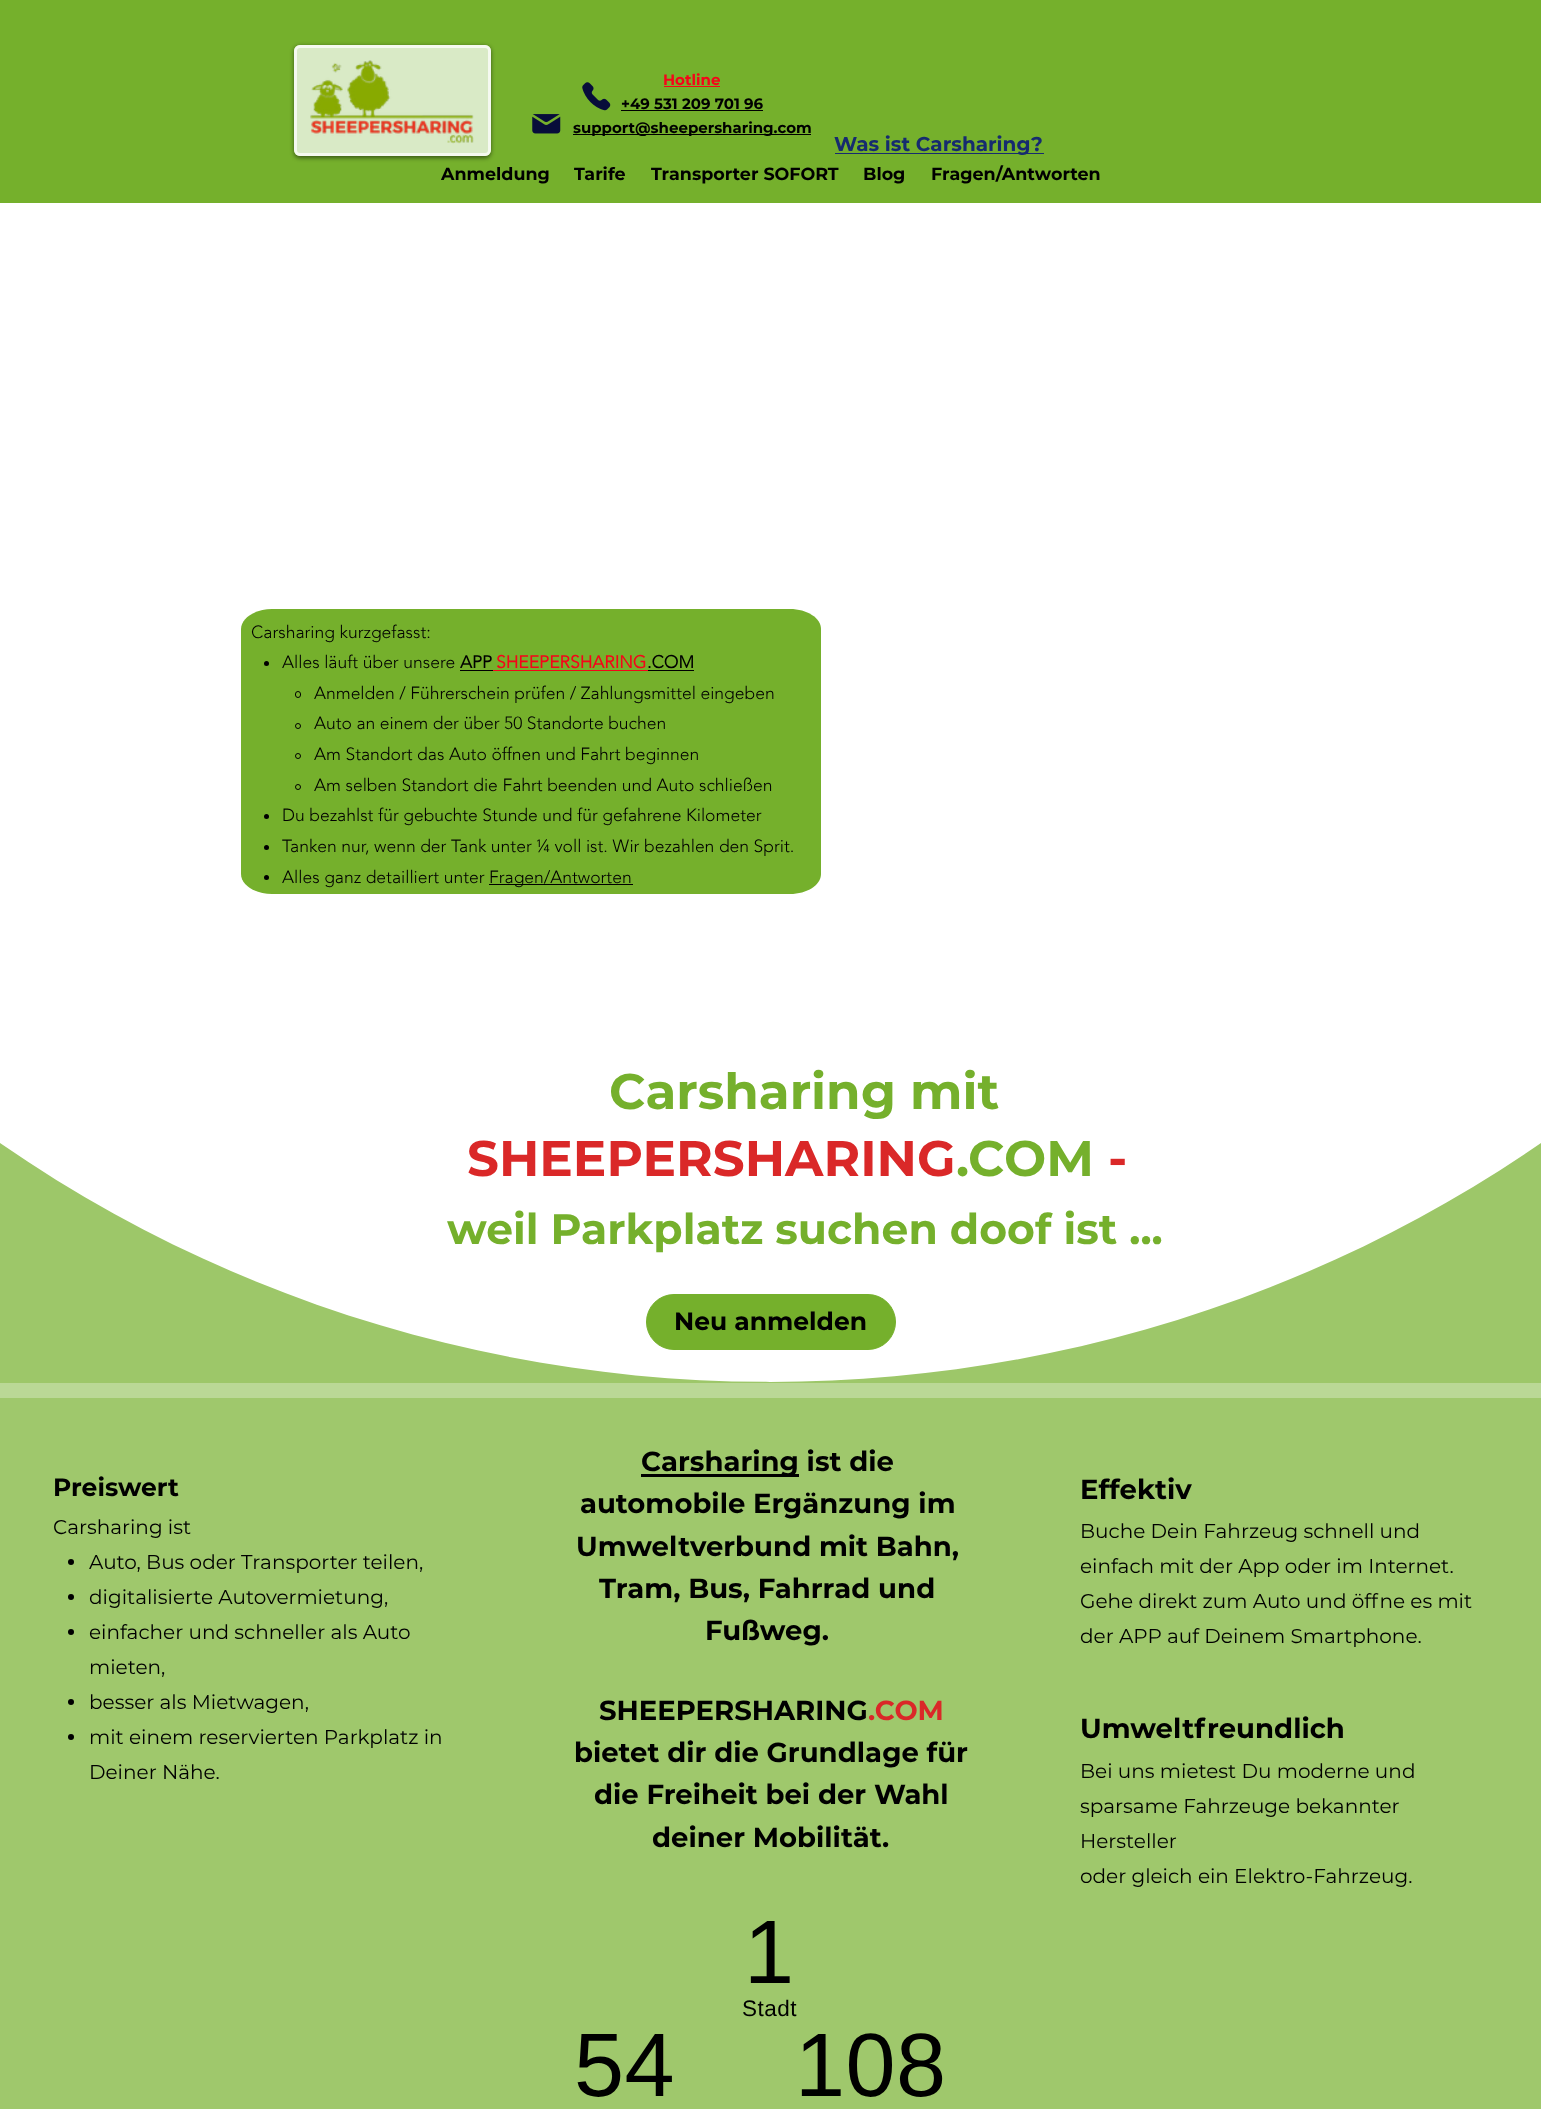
<svg xmlns="http://www.w3.org/2000/svg" width="1541" height="2109" viewBox="0 0 1541 2109">
  <defs>
    <clipPath id="clip1"><path d="M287 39H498V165H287ZM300 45H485C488.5 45 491 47.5 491 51V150C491 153.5 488.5 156 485 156H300C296.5 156 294 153.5 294 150V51C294 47.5 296.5 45 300 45Z" clip-rule="evenodd"/></clipPath>
    <clipPath id="clip2"><rect x="0" y="1133" width="1541" height="250"/></clipPath>
  </defs>
  <rect width="100%" height="100%" fill="rgb(186,216,150)"/>
  <rect x="0" y="0" width="1541" height="203" fill="rgb(117,176,44)"/>
  <text x="663" y="85" font-family="Montserrat" font-size="15" font-weight="bold" fill="rgb(246,4,25)">Hotline</text>
  <rect x="664" y="86" width="56" height="1" fill="rgb(246,4,25)"/>
  <text x="621" y="109" font-family="Montserrat" font-size="15" font-weight="bold" fill="rgb(0,0,0)">+49 531 209 701 96</text>
  <rect x="621" y="110" width="142" height="1" fill="rgb(0,0,0)"/>
  <rect x="573" y="134" width="238" height="1" fill="rgb(0,0,0)"/>
  <text x="573" y="133" font-family="Montserrat" font-size="15" font-weight="bold" fill="rgb(0,0,0)">support@sheepersharing.com</text>
  <image x="582" y="82" width="29" height="29" href="pic1.png"/>
  <image x="532" y="114" width="29" height="20" href="pic2.png"/>
  <rect x="835" y="153" width="209" height="1" fill="rgb(22,43,111)"/>
  <text x="834" y="151" font-family="Montserrat" font-size="20" font-weight="bold" fill="rgb(22,43,111)">Was ist Carsharing?</text>
  <g clip-path="url(#clip1)">
    <rect x="294" y="46" width="197" height="112" rx="6" fill="rgba(0,0,0,0.5)" filter="blur(2px)"/>
  </g>
  <rect x="294" y="45" width="197" height="111" rx="6" fill="rgba(255,255,255,0.73)"/>
  <rect x="295.5" y="46.5" width="194" height="108" rx="4.5" fill="none" stroke="rgba(255,255,255,0.73)" stroke-width="3"/>
  <image x="310" y="60" width="164" height="84" href="pic3.png"/>
  <g font-family="Montserrat" font-size="17.5" font-weight="bold" fill="rgb(0,0,0)">
    <text x="441" y="180">Anmeldung</text>
    <text x="574" y="180">Tarife</text>
    <text x="651" y="180">Transporter SOFORT</text>
    <text x="863" y="180">Blog</text>
    <text x="931" y="180">Fragen/Antworten</text>
  </g>
  <rect x="0" y="203" width="1541" height="1179" fill="rgb(255,255,255)"/>
  <path d="M790 894H272C255 894 241 885 241 874V629C241 618 255 609 272 609H790C807 609 821 618 821 629V874C821 885 807 894 790 894Z" fill="rgb(117,176,44)"/>
  <text x="251" y="638" font-family="'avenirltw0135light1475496'" font-size="17.5" font-weight="300" fill="rgb(0,0,0)">Carsharing kurzgefasst:</text>
  <circle cx="266.5" cy="663.5" r="2.5" fill="rgb(0,0,0)"/>
  <text x="282" y="668" font-family="'avenirltw0135light1475496'" font-size="17.5" font-weight="300" fill="rgb(0,0,0)">Alles läuft über unsere</text>
  <text x="460" y="668" font-family="'avenirltw0135light1475496'" font-size="17.5" font-weight="bold" fill="rgb(0,0,0)">APP</text>
  <rect x="460" y="670" width="33" height="1" fill="rgb(0,0,0)"/>
  <text x="496" y="668" font-family="'avenirltw0135light1475496'" font-size="17.5" font-weight="bold" fill="rgb(246,4,25)">SHEEPERSHARING</text>
  <rect x="493" y="670" width="155" height="1" fill="rgb(246,4,25)"/>
  <text x="647" y="668" font-family="'avenirltw0135light1475496'" font-size="17.5" font-weight="bold" fill="rgb(0,0,0)">.COM</text>
  <rect x="648" y="670" width="46" height="1" fill="rgb(0,0,0)"/>
  <rect x="295.5" y="691.5" width="5" height="6" rx="2.5" fill="none" stroke="rgb(0,0,0)"/>
  <text x="314" y="699" font-family="'avenirltw0135light1475496'" font-size="17.5" font-weight="300" fill="rgb(0,0,0)">Anmelden / Führerschein prüfen / Zahlungsmittel eingeben</text>
  <circle cx="298" cy="726" r="2.5" fill="none" stroke="rgb(0,0,0)"/>
  <text x="314" y="729" font-family="'avenirltw0135light1475496'" font-size="17.5" font-weight="300" fill="rgb(0,0,0)">Auto an einem der über 50 Standorte buchen</text>
  <circle cx="298" cy="756" r="2.5" fill="none" stroke="rgb(0,0,0)"/>
  <text x="314" y="760" font-family="'avenirltw0135light1475496'" font-size="17.5" font-weight="300" fill="rgb(0,0,0)">Am Standort das Auto öffnen und Fahrt beginnen</text>
  <circle cx="298" cy="787" r="2.5" fill="none" stroke="rgb(0,0,0)"/>
  <text x="314" y="791" font-family="'avenirltw0135light1475496'" font-size="17.5" font-weight="300" fill="rgb(0,0,0)">Am selben Standort die Fahrt beenden und Auto schließen</text>
  <circle cx="266.5" cy="816.5" r="2.5" fill="rgb(0,0,0)"/>
  <text x="282" y="821" font-family="'avenirltw0135light1475496'" font-size="17.5" font-weight="300" fill="rgb(0,0,0)">Du bezahlst für gebuchte Stunde und für gefahrene Kilometer</text>
  <circle cx="266.5" cy="847.5" r="2.5" fill="rgb(0,0,0)"/>
  <text x="282" y="852" font-family="'avenirltw0135light1475496'" font-size="17.5" font-weight="300" fill="rgb(0,0,0)">Tanken nur, wenn der Tank unter ¼ voll ist. Wir bezahlen den Sprit.</text>
  <circle cx="266.5" cy="877.5" r="2.5" fill="rgb(0,0,0)"/>
  <text x="282" y="883" font-family="'avenirltw0135light1475496'" font-size="17.5" font-weight="300" fill="rgb(0,0,0)">Alles ganz detailliert unter</text>
  <rect x="489" y="884" width="144" height="1" fill="rgb(0,0,0)"/>
  <text x="489" y="883" font-family="'avenirltw0135light1475496'" font-size="17.5" font-weight="300" fill="rgb(0,0,0)">Fragen/Antworten</text>
  <text x="609" y="1109" font-family="Montserrat" font-size="50" font-weight="bold" fill="rgb(117,176,44)">Carsharing mit</text>
  <g clip-path="url(#clip2)">
    <path d="M1541 1143C1080 1461 461 1462 0 1143V1132H1541ZM0 1384H1541V1132H0Z" fill="rgb(157,199,105)" fill-rule="evenodd"/>
  </g>
  <text x="467" y="1176" font-family="Montserrat" font-size="50" font-weight="bold" fill="rgb(218,40,40)">SHEEPERSHARING</text>
  <text x="956" y="1176" font-family="Montserrat" font-size="50" font-weight="bold" fill="rgb(117,176,44)">.COM</text>
  <text x="1108" y="1176" font-family="Montserrat" font-size="50" font-weight="bold" fill="rgb(218,40,40)">-</text>
  <text x="447" y="1244" font-family="Montserrat" font-size="42.5" font-weight="bold" fill="rgb(117,176,44)">weil Parkplatz suchen doof ist ...</text>
  <rect x="646.5" y="1294.5" width="249" height="55" rx="27.5" fill="rgb(117,176,44)" stroke="rgb(117,176,44)"/>
  <text x="674" y="1330" font-family="Montserrat" font-size="25" font-weight="bold" fill="rgb(0,0,0)">Neu anmelden</text>
  <rect x="0" y="1398" width="1541" height="711" fill="rgb(159,200,108)"/>
  <text x="53" y="1496" font-family="Montserrat" font-size="25" font-weight="bold" fill="rgb(0,0,0)">Preiswert</text>
  <text x="53" y="1534" font-family="Montserrat" font-size="20" fill="rgb(0,0,0)">Carsharing ist</text>
  <circle cx="71" cy="1562" r="3" fill="rgb(0,0,0)"/>
  <text x="89" y="1569" font-family="Montserrat" font-size="20" fill="rgb(0,0,0)">Auto, Bus oder Transporter teilen,</text>
  <circle cx="71" cy="1597" r="3" fill="rgb(0,0,0)"/>
  <text x="89" y="1604" font-family="Montserrat" font-size="20" fill="rgb(0,0,0)">digitalisierte Autovermietung,</text>
  <circle cx="71" cy="1632" r="3" fill="rgb(0,0,0)"/>
  <g font-family="Montserrat" font-size="20" fill="rgb(0,0,0)">
    <text>
      <tspan x="89" y="1639">einfacher und schneller als Auto</tspan>
      <tspan x="89" y="1674">mieten,</tspan>
    </text>
  </g>
  <circle cx="71" cy="1702" r="3" fill="rgb(0,0,0)"/>
  <text x="89" y="1709" font-family="Montserrat" font-size="20" fill="rgb(0,0,0)">besser als Mietwagen,</text>
  <circle cx="71" cy="1737" r="3" fill="rgb(0,0,0)"/>
  <g font-family="Montserrat" font-size="20" fill="rgb(0,0,0)">
    <text>
      <tspan x="89" y="1744">mit einem reservierten Parkplatz in</tspan>
      <tspan x="89" y="1779">Deiner Nähe.</tspan>
    </text>
  </g>
  <rect x="641" y="1474" width="158" height="3" fill="rgb(0,0,0)"/>
  <g font-family="Montserrat" font-size="27.5" font-weight="bold" fill="rgb(0,0,0)">
    <text x="641" y="1471">Carsharing ist die</text>
    <text x="580" y="1513">automobile Ergänzung im</text>
    <text x="576" y="1556">Umweltverbund mit Bahn,</text>
    <text x="599" y="1598">Tram, Bus, Fahrrad und</text>
    <text x="705" y="1640">Fußweg.</text>
    <text x="599" y="1720">SHEEPERSHARING</text>
  </g>
  <text x="868" y="1720" font-family="Montserrat" font-size="27.5" font-weight="bold" fill="rgb(218,40,40)">.COM</text>
  <g font-family="Montserrat" font-size="27.5" font-weight="bold" fill="rgb(0,0,0)">
    <text x="574" y="1762">bietet dir die Grundlage für</text>
    <text x="594" y="1804">die Freiheit bei der Wahl</text>
    <text x="652" y="1847">deiner Mobilität.</text>
  </g>
  <text x="744" y="1983" font-family="Liberation Sans" font-size="90" letter-spacing="0.5" fill="rgb(0,0,0)">1</text>
  <text x="742" y="2016" font-family="Liberation Sans" font-size="22.5" letter-spacing="0.5" fill="rgb(0,0,0)">Stadt</text>
  <g font-family="Liberation Sans" font-size="90" letter-spacing="0.5" fill="rgb(0,0,0)">
    <text x="574" y="2096">54</text>
    <text x="795" y="2096">108</text>
  </g>
  <text x="1080" y="1499" font-family="Montserrat" font-size="27.5" font-weight="bold" fill="rgb(0,0,0)">Effektiv</text>
  <g font-family="Montserrat" font-size="20" fill="rgb(0,0,0)">
    <text>
      <tspan x="1080" y="1538">Buche Dein Fahrzeug schnell und</tspan>
      <tspan x="1080" y="1573">einfach mit der App oder im Internet.</tspan>
      <tspan x="1080" y="1608">Gehe direkt zum Auto und öffne es mit</tspan>
      <tspan x="1080" y="1643">der APP auf Deinem Smartphone.</tspan>
    </text>
  </g>
  <text x="1080" y="1738" font-family="Montserrat" font-size="27.5" font-weight="bold" fill="rgb(0,0,0)">Umweltfreundlich</text>
  <g font-family="Montserrat" font-size="20" fill="rgb(0,0,0)">
    <text>
      <tspan x="1080" y="1778">Bei uns mietest Du moderne und</tspan>
      <tspan x="1080" y="1813">sparsame Fahrzeuge bekannter</tspan>
      <tspan x="1080" y="1848">Hersteller</tspan>
      <tspan x="1080" y="1883">oder gleich ein Elektro-Fahrzeug.</tspan>
    </text>
  </g>
</svg>
